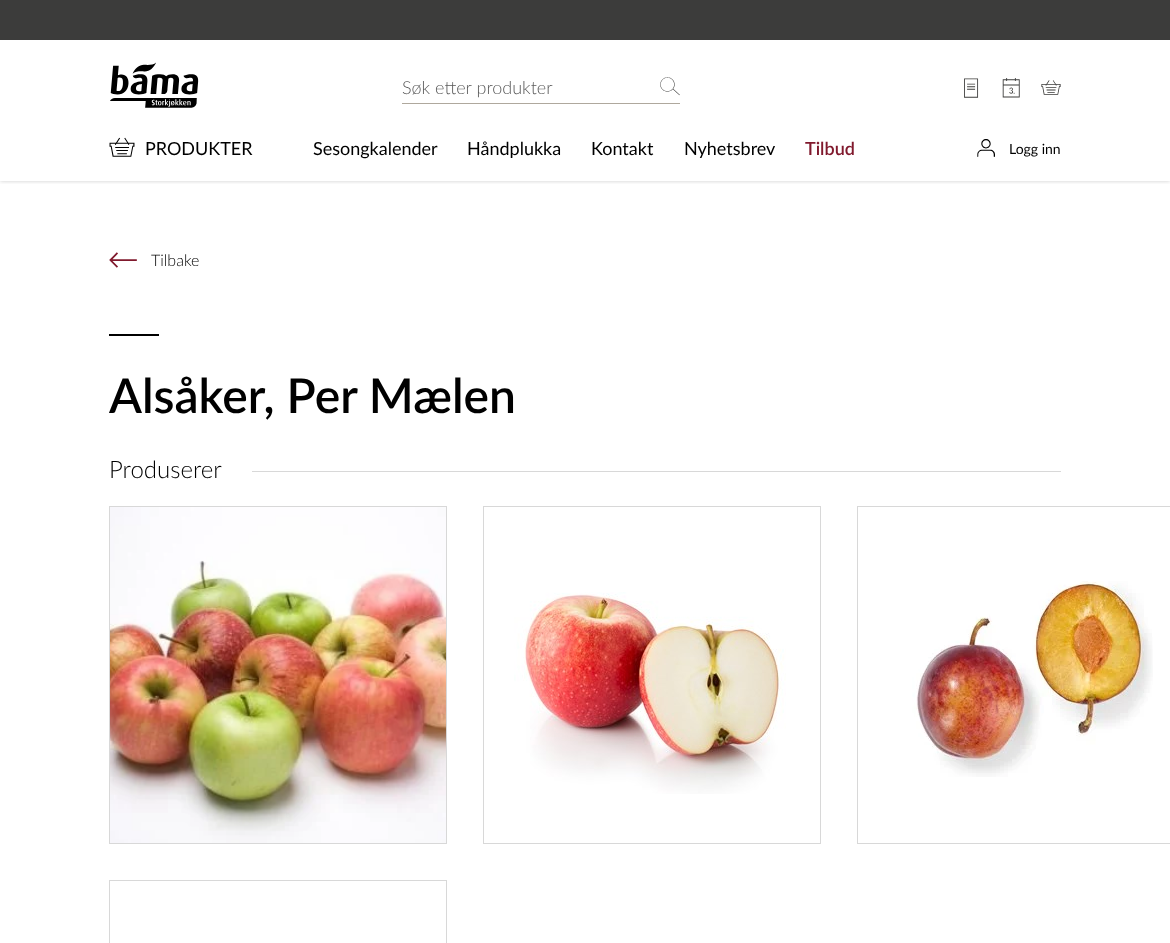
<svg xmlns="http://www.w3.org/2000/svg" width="1170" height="943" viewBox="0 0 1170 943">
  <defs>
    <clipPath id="clip1"><rect x="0" y="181" width="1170" height="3"/></clipPath>
  </defs>
  <rect width="100%" height="100%" fill="rgb(255,255,255)"/>
  <g clip-path="url(#clip1)">
    <rect x="0" y="0" width="1170" height="181" fill="rgba(0,0,0,0.2)" filter="blur(2px)"/>
  </g>
  <rect x="0" y="0" width="1170" height="40" fill="rgb(60,60,59)"/>
  <image x="110" y="62" width="89" height="46" href="pic1.png"/>
  <rect x="402" y="103" width="278" height="1" fill="rgb(175,168,157)"/>
  <text x="402" y="94" font-family="Lato" font-size="18" font-weight="300" fill="rgb(89,89,89)">Søk etter produkter</text>
  <image x="660" y="77" width="20" height="19" href="pic2.png"/>
  <image x="964" y="78" width="15" height="20" href="pic3.png"/>
  <image x="1002" y="78" width="18" height="20" href="pic4.png"/>
  <image x="1041" y="80" width="20" height="15" href="pic5.png"/>
  <image x="109" y="137" width="26" height="20" href="pic6.png"/>
  <g font-family="Lato" font-size="18" fill="rgb(0,0,0)">
    <text x="145" y="155">PRODUKTER</text>
    <text x="313" y="155">Sesongkalender</text>
    <text x="467" y="155">Håndplukka</text>
    <text x="591" y="155">Kontakt</text>
    <text x="684" y="155">Nyhetsbrev</text>
  </g>
  <text x="805" y="155" font-family="Lato" font-size="18" font-weight="600" fill="rgb(128,25,45)">Tilbud</text>
  <image x="977" y="139" width="18" height="18" href="pic7.png"/>
  <text x="1009" y="154" font-family="Lato" font-size="14" fill="rgb(0,0,0)">Logg inn</text>
  <image x="109" y="252" width="28" height="16" href="pic8.png"/>
  <text x="151" y="266" font-family="Lato" font-size="16" font-weight="300" fill="rgb(0,0,0)">Tilbake</text>
  <rect x="109" y="334" width="50" height="2" fill="rgb(0,0,0)"/>
  <text x="109" y="413" font-family="Lato" font-size="48" font-weight="600" fill="rgb(0,0,0)">Alsåker, Per Mælen</text>
  <text x="109" y="478" font-family="Lato" font-size="24" font-weight="300" fill="rgb(0,0,0)">Produserer</text>
  <rect x="252" y="471" width="809" height="1" fill="rgb(216,216,216)"/>
  <rect x="109.5" y="506.5" width="337" height="337" fill="none" stroke="rgb(216,216,216)"/>
  <image x="110" y="507" width="336" height="336" href="pic9.png"/>
  <rect x="483.5" y="506.5" width="337" height="337" fill="none" stroke="rgb(216,216,216)"/>
  <image x="514" y="592" width="272" height="202" href="pic10.png"/>
  <rect x="857.5" y="506.5" width="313" height="337" fill="none" stroke="rgb(216,216,216)"/>
  <image x="912" y="581" width="241" height="196" href="pic11.png"/>
  <rect x="109.5" y="880.5" width="337" height="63" fill="none" stroke="rgb(216,216,216)"/>
</svg>
